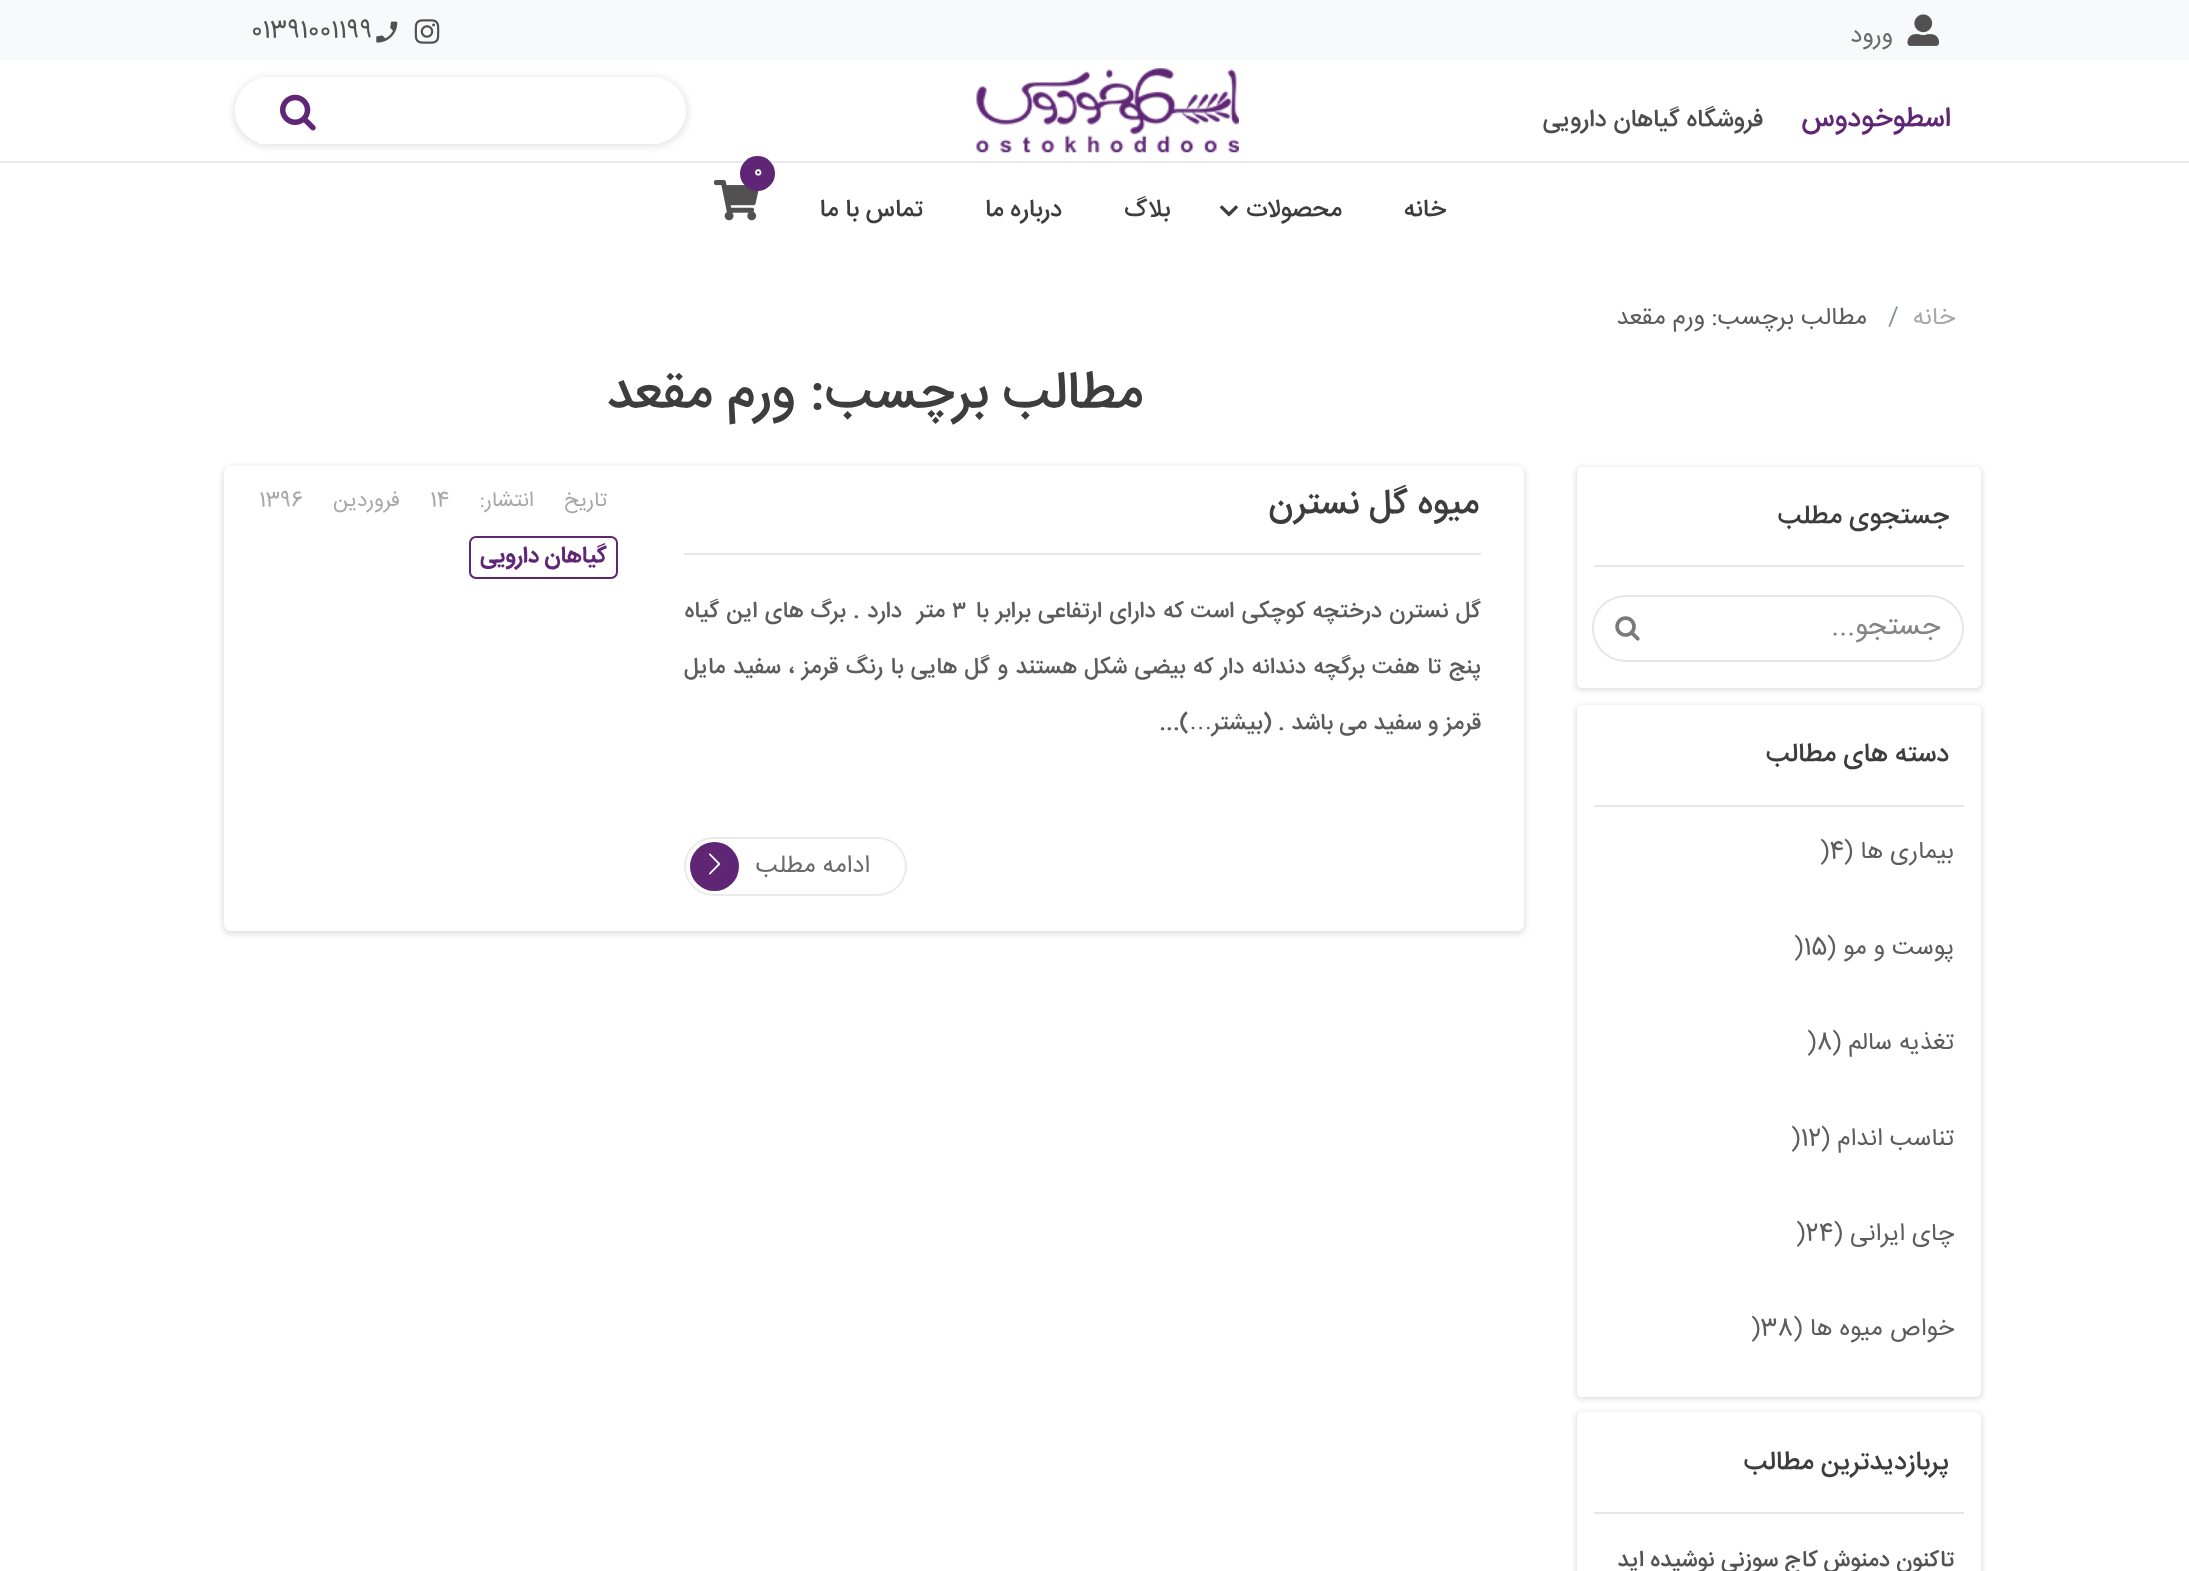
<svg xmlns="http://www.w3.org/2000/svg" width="2189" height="1571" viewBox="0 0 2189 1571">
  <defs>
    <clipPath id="clip1"><path d="M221 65H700V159H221ZM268.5 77H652.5C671 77 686 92 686 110.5C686 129 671 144 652.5 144H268.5C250 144 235 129 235 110.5C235 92 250 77 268.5 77Z" clip-rule="evenodd"/></clipPath>
  </defs>
  <rect width="100%" height="100%" fill="rgb(255,255,255)"/>
  <rect x="0" y="0" width="2189" height="60" fill="rgb(248,249,250)"/>
  <image x="1907" y="14" width="32" height="32" href="pic1.png"/>
  <text x="1893" y="42" font-family="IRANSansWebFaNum" font-size="24.5" direction="rtl" fill="rgb(106,106,106)">ورود</text>
  <image x="414" y="19" width="26" height="25" href="pic2.png"/>
  <image x="376" y="21" width="22" height="22" href="pic3.png"/>
  <text x="251" y="37" font-family="IRANSansWebFaNum" font-size="24.5" fill="rgb(83,83,83)">01391001199</text>
  <rect x="0" y="161" width="2189" height="2" fill="rgb(234,234,234)"/>
  <text x="1951" y="126" font-family="IRANSansWebFaNum" font-size="28" font-weight="500" direction="rtl" fill="rgb(95,38,117)">اسطوخودوس</text>
  <text x="1763" y="126" font-family="IRANSansWebFaNum" font-size="24.5" font-weight="500" direction="rtl" fill="rgb(76,76,76)">فروشگاه گیاهان دارویی</text>
  <image x="976" y="68" width="263" height="85" href="pic4.png"/>
  <g clip-path="url(#clip1)">
    <rect x="233" y="77" width="455" height="70" rx="35" fill="rgba(0,0,0,0.1)" filter="blur(3.5px)"/>
  </g>
  <path d="M345 77H660V144H345C341 144 338 141 338 137V84C338 80 341 77 345 77Z" fill="rgb(255,255,255)"/>
  <rect x="259" y="77" width="79" height="67" fill="rgb(255,255,255)"/>
  <image x="280" y="94" width="36" height="37" href="pic5.png"/>
  <image x="714" y="180" width="45" height="41" href="pic6.png"/>
  <circle cx="757.5" cy="173.5" r="17.5" fill="rgb(95,38,117)"/>
  <text x="754" y="176" font-family="IRANSansWebFaNum" font-size="18" font-weight="500" fill="rgb(255,255,255)">0</text>
  <g font-family="IRANSansWebFaNum" font-size="24.5" font-weight="500" direction="rtl" fill="rgb(61,61,61)">
    <text x="1446" y="216">خانه</text>
    <text x="1342" y="216">محصولات</text>
  </g>
  <image x="1220" y="205" width="18" height="12" href="pic7.png"/>
  <g font-family="IRANSansWebFaNum" font-size="24.5" font-weight="500" direction="rtl" fill="rgb(61,61,61)">
    <text x="1170" y="216">بلاگ</text>
    <text x="1062" y="216">درباره ما</text>
    <text x="923" y="216">تماس با ما</text>
  </g>
  <text x="1955" y="324" font-family="IRANSansWebFaNum" font-size="24.5" direction="rtl" fill="rgb(168,168,168)">خانه</text>
  <text x="1888" y="324" font-family="IRANSansWebFaNum" font-size="24.5" fill="rgb(134,142,150)">/</text>
  <g font-family="IRANSansWebFaNum" font-size="24.5" direction="rtl" fill="rgb(92,92,92)">
    <text x="1867" y="324">مطالب برچسب:</text>
    <text x="1705" y="324">ورم مقعد</text>
  </g>
  <rect x="1575" y="467" width="408" height="224" rx="7" fill="rgba(0,0,0,0.1)" filter="blur(2.5px)"/>
  <rect x="1577" y="467" width="404" height="221" rx="5" fill="rgb(255,255,255)"/>
  <text x="1949" y="523" font-family="IRANSansWebFaNum" font-size="26.25" font-weight="500" direction="rtl" fill="rgb(61,61,61)">جستجوی مطلب</text>
  <rect x="1594" y="565" width="370" height="2" fill="rgb(230,230,230)"/>
  <path d="M1661 595H1930C1949 595 1964 610 1964 628C1964 647 1949 662 1930 662H1661ZM1661 597H1930C1948 597 1962 611 1962 628C1962 646 1948 660 1930 660H1661Z" fill="rgb(230,230,230)" fill-rule="evenodd"/>
  <text x="1940" y="634" font-family="IRANSansWebFaNum" font-size="28" direction="rtl" fill="rgb(132,132,132)">جستجو...</text>
  <path d="M1626 595H1661V662H1626C1607 662 1592 647 1592 628C1592 610 1607 595 1626 595ZM1626 597H1661V660H1626C1608 660 1594 646 1594 628C1594 611 1608 597 1626 597Z" fill="rgb(230,230,230)" fill-rule="evenodd"/>
  <image x="1615" y="616" width="25" height="25" href="pic8.png"/>
  <rect x="1575" y="705" width="408" height="695" rx="7" fill="rgba(0,0,0,0.1)" filter="blur(2.5px)"/>
  <rect x="1577" y="705" width="404" height="692" rx="5" fill="rgb(255,255,255)"/>
  <text x="1949" y="761" font-family="IRANSansWebFaNum" font-size="26.25" font-weight="500" direction="rtl" fill="rgb(61,61,61)">دسته های مطالب</text>
  <rect x="1594" y="805" width="370" height="2" fill="rgb(230,230,230)"/>
  <text x="1954" y="858" font-family="IRANSansWebFaNum" font-size="24.5" direction="rtl" fill="rgb(92,92,92)">بیماری ها (</text>
  <text x="1820" y="858" font-family="IRANSansWebFaNum" font-size="24.5" fill="rgb(92,92,92)">)4</text>
  <text x="1954" y="954" font-family="IRANSansWebFaNum" font-size="24.5" direction="rtl" fill="rgb(92,92,92)">پوست و مو (</text>
  <text x="1794" y="954" font-family="IRANSansWebFaNum" font-size="24.5" fill="rgb(92,92,92)">)15</text>
  <text x="1954" y="1049" font-family="IRANSansWebFaNum" font-size="24.5" direction="rtl" fill="rgb(92,92,92)">تغذیه سالم (</text>
  <text x="1807" y="1049" font-family="IRANSansWebFaNum" font-size="24.5" fill="rgb(92,92,92)">)8</text>
  <text x="1954" y="1145" font-family="IRANSansWebFaNum" font-size="24.5" direction="rtl" fill="rgb(92,92,92)">تناسب اندام (</text>
  <text x="1791" y="1145" font-family="IRANSansWebFaNum" font-size="24.5" fill="rgb(92,92,92)">)12</text>
  <text x="1954" y="1240" font-family="IRANSansWebFaNum" font-size="24.5" direction="rtl" fill="rgb(92,92,92)">چای ایرانی (</text>
  <text x="1796" y="1240" font-family="IRANSansWebFaNum" font-size="24.5" fill="rgb(92,92,92)">)24</text>
  <text x="1954" y="1335" font-family="IRANSansWebFaNum" font-size="24.5" direction="rtl" fill="rgb(92,92,92)">خواص میوه ها (</text>
  <text x="1751" y="1335" font-family="IRANSansWebFaNum" font-size="24.5" fill="rgb(92,92,92)">)38</text>
  <rect x="1575" y="1412" width="408" height="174" rx="7" fill="rgba(0,0,0,0.1)" filter="blur(2.5px)"/>
  <rect x="1577" y="1412" width="404" height="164" rx="5" fill="rgb(255,255,255)"/>
  <text x="1949" y="1469" font-family="IRANSansWebFaNum" font-size="26.25" font-weight="500" direction="rtl" fill="rgb(61,61,61)">پربازدیدترین مطالب</text>
  <rect x="1594" y="1512" width="370" height="2" fill="rgb(230,230,230)"/>
  <text x="1954" y="1566" font-family="IRANSansWebFaNum" font-size="22.75" font-weight="500" direction="rtl" fill="rgb(83,83,83)">تاکنون دمنوش کاج سوزنی نوشیده اید</text>
  <g font-family="IRANSansWebFaNum" font-size="52.5" font-weight="500" direction="rtl" fill="rgb(61,61,61)">
    <text x="1143" y="407">مطالب برچسب:</text>
    <text x="795" y="407">ورم مقعد</text>
  </g>
  <rect x="222" y="466" width="1304" height="469" rx="9" fill="rgba(0,0,0,0.1)" filter="blur(2.5px)"/>
  <rect x="224" y="466" width="1300" height="465" rx="7" fill="rgb(255,255,255)"/>
  <text x="1479" y="513" font-family="IRANSansWebFaNum" font-size="35" font-weight="500" direction="rtl" fill="rgb(61,61,61)">میوه گل نسترن</text>
  <rect x="684" y="553" width="797" height="2" fill="rgb(230,230,230)"/>
  <text x="1481" y="617" word-spacing="1" font-family="IRANSansWebFaNum" font-size="22.75" font-weight="500" direction="rtl" fill="rgb(92,92,92)">گل نسترن درختچه کوچکی است که دارای ارتفاعی برابر با</text>
  <text x="952" y="617" font-family="IRANSansWebFaNum" font-size="22.75" font-weight="500" fill="rgb(92,92,92)">۳</text>
  <g font-family="IRANSansWebFaNum" font-size="22.75" font-weight="500" direction="rtl" fill="rgb(92,92,92)">
    <text x="945" y="617">متر</text>
    <text x="902" y="617" word-spacing="1">دارد . برگ های این گیاه</text>
    <text x="1481" y="673" word-spacing="1.2">پنج تا هفت برگچه دندانه‌‌ دار که بیضی شکل هستند و گل هایی با رنگ قرمز ، سفید مایل</text>
    <text x="1481" y="729">قرمز و سفید می باشد .</text>
    <text x="1272" y="729">(بیشتر</text>
  </g>
  <text x="1212" y="729" font-family="Liberation Serif" font-size="22.75" direction="rtl" fill="rgb(92,92,92)">…</text>
  <text x="1189" y="729" font-family="IRANSansWebFaNum" font-size="22.75" font-weight="500" direction="rtl" fill="rgb(92,92,92)">)...</text>
  <rect x="685" y="838" width="221" height="57" rx="28.5" fill="none" stroke="rgb(234,234,234)" stroke-width="2"/>
  <text x="870" y="872" font-family="IRANSansWebFaNum" font-size="24.5" direction="rtl" fill="rgb(106,106,106)">ادامه مطلب</text>
  <circle cx="714.5" cy="866.5" r="24.5" fill="rgb(95,38,117)"/>
  <image x="709" y="853" width="12" height="22" href="pic9.png"/>
  <text x="607" y="506" word-spacing="24" font-family="IRANSansWebFaNum" font-size="21" direction="rtl" fill="rgb(168,168,168)">تاریخ انتشار:</text>
  <text x="430" y="506" font-family="IRANSansWebFaNum" font-size="21" fill="rgb(168,168,168)">14</text>
  <text x="400" y="506" font-family="IRANSansWebFaNum" font-size="21" direction="rtl" fill="rgb(168,168,168)">فروردین</text>
  <text x="259" y="506" font-family="IRANSansWebFaNum" font-size="21" fill="rgb(168,168,168)">1396</text>
  <rect x="470" y="537" width="147" height="41" rx="6" fill="none" stroke="rgb(95,38,117)" stroke-width="2"/>
  <text x="607" y="562" font-family="IRANSansWebFaNum" font-size="22.75" font-weight="bold" direction="rtl" fill="rgb(95,38,117)">گیاهان دارویی</text>
</svg>
